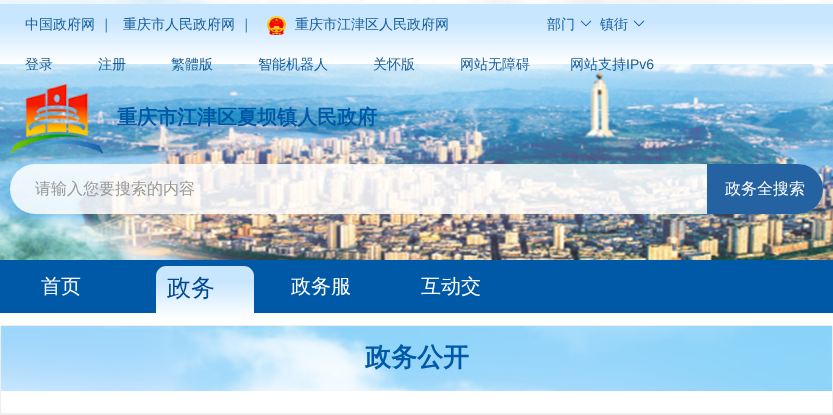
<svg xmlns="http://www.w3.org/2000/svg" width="833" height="415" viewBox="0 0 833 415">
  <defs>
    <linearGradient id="g1" gradientUnits="userSpaceOnUse" x1="417" y1="4" x2="417" y2="64"><stop offset="0.3" stop-color="rgb(201,230,255)"/><stop offset="1" stop-color="rgb(255,255,255)"/></linearGradient>
    <linearGradient id="g2" gradientUnits="userSpaceOnUse" x1="205" y1="266" x2="205" y2="319"><stop offset="0.3" stop-color="rgb(201,230,255)"/><stop offset="1" stop-color="rgb(255,255,255)"/></linearGradient>
  </defs>
  <rect width="100%" height="100%" fill="rgb(255,255,255)"/>
  <image x="0" y="0" width="833" height="260" href="pic1.png"/>
  <rect x="0" y="4" width="833" height="60" fill="url(#g1)"/>
  <g font-family="WenQuanYi Zen Hei" font-size="14" font-weight="500" fill="rgb(22,94,157)">
    <text x="25" y="29">中国政府网 ｜</text>
    <text x="123" y="29">重庆市人民政府网 ｜</text>
  </g>
  <image x="267" y="16" width="19" height="19" href="pic2.png"/>
  <g font-family="WenQuanYi Zen Hei" font-size="14" font-weight="500" fill="rgb(22,94,157)">
    <text x="295" y="29">重庆市江津区人民政府网</text>
    <text x="547" y="29">部门</text>
  </g>
  <image x="580" y="20" width="12" height="7" href="pic3.png"/>
  <text x="600" y="29" font-family="WenQuanYi Zen Hei" font-size="14" font-weight="500" fill="rgb(22,94,157)">镇街</text>
  <image x="633" y="20" width="12" height="7" href="pic3.png"/>
  <g font-family="WenQuanYi Zen Hei" font-size="14" font-weight="500" fill="rgb(22,94,157)">
    <text x="25" y="69">登录</text>
    <text x="98" y="69">注册</text>
    <text x="171" y="69">繁體版</text>
    <text x="258" y="69">智能机器人</text>
    <text x="373" y="69">关怀版</text>
    <text x="460" y="69">网站无障碍</text>
    <text x="570" y="69">网站支持</text>
  </g>
  <text x="626" y="69" font-family="Liberation Sans" font-size="14" fill="rgb(22,94,157)">IPv6</text>
  <image x="10" y="84" width="94" height="70" href="pic4.png"/>
  <text x="117" y="124" font-family="WenQuanYi Zen Hei" font-size="20" font-weight="bold" fill="rgb(0,89,167)">重庆市江津区夏坝镇人民政府</text>
  <rect x="10" y="164" width="813" height="50" rx="25" fill="rgba(255,255,255,0.85)"/>
  <text x="35" y="194" font-family="WenQuanYi Zen Hei" font-size="16" font-weight="500" fill="rgb(153,153,153)">请输入您要搜索的内容</text>
  <path d="M707 164H798C812 164 823 175 823 189C823 203 812 214 798 214H707Z" fill="rgb(37,98,162)"/>
  <text x="725" y="194" font-family="WenQuanYi Zen Hei" font-size="16" font-weight="500" fill="rgb(255,255,255)">政务全搜索</text>
  <rect x="0" y="260" width="833" height="53" fill="rgb(0,89,167)"/>
  <text x="41" y="293" font-family="WenQuanYi Zen Hei" font-size="20" font-weight="500" fill="rgb(255,255,255)">首页</text>
  <path d="M166 266H244C249.5 266 254 270.5 254 276V319H156V276C156 270.5 160.5 266 166 266Z" fill="url(#g2)"/>
  <text x="167" y="296" font-family="WenQuanYi Zen Hei" font-size="24" font-weight="500" fill="rgb(0,72,146)">政务</text>
  <g font-family="WenQuanYi Zen Hei" font-size="20" font-weight="500" fill="rgb(255,255,255)">
    <text x="291" y="293">政务服</text>
    <text x="421" y="293">互动交</text>
  </g>
  <rect x="0.5" y="325.5" width="832" height="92" rx="1.5" fill="none" stroke="rgb(238,238,238)"/>
  <image x="1" y="326" width="831" height="65" href="pic5.png"/>
  <text x="365" y="366" font-family="WenQuanYi Zen Hei" font-size="26" font-weight="bold" fill="rgb(0,89,167)">政务公开</text>
  <rect x="1" y="413" width="831" height="2" fill="rgb(238,238,238)"/>
</svg>
